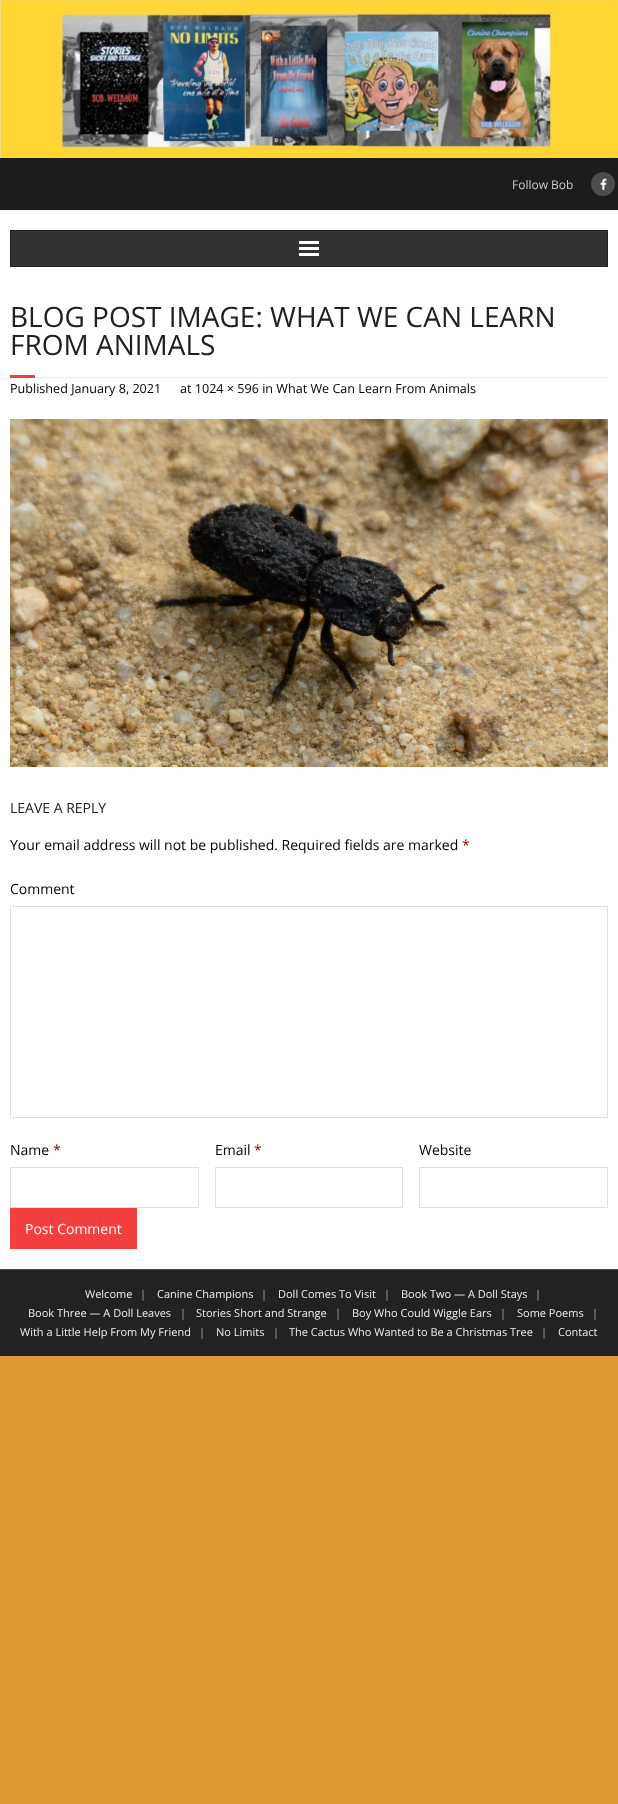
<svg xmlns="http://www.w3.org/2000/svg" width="618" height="1804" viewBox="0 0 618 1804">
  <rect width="100%" height="100%" fill="rgb(221,153,51)"/>
  <rect x="0" y="210" width="618" height="1059" fill="rgb(255,255,255)"/>
  <image x="0" y="0" width="618" height="158" href="pic1.png"/>
  <rect x="0" y="158" width="618" height="52" fill="rgb(28,28,28)"/>
  <text x="512" y="189" font-family="Open Sans" font-size="12" fill="rgb(204,204,204)">Follow Bob</text>
  <circle cx="603" cy="184" r="12" fill="rgb(77,77,77)"/>
  <image x="600" y="178" width="7" height="12" href="pic2.png"/>
  <rect x="10.5" y="230.5" width="597" height="36" fill="rgb(51,51,51)" stroke="rgb(34,34,34)"/>
  <rect x="299" y="241" width="20" height="3" fill="rgb(255,255,255)"/>
  <rect x="299" y="247" width="20" height="3" fill="rgb(255,255,255)"/>
  <rect x="299" y="253" width="20" height="3" fill="rgb(255,255,255)"/>
  <g font-family="Open Sans" font-size="28" fill="rgb(32,32,32)">
    <text>
      <tspan x="10" y="327">BLOG POST IMAGE: WHAT WE CAN LEARN</tspan>
      <tspan x="10" y="355">FROM ANIMALS</tspan>
    </text>
  </g>
  <rect x="10" y="375" width="25" height="3" fill="rgb(243,63,63)"/>
  <rect x="35" y="377" width="573" height="1" fill="rgb(238,238,238)"/>
  <g font-family="Open Sans" font-size="12.6" fill="rgb(0,0,0)">
    <text x="10" y="393">Published January 8, 2021</text>
    <text x="180" y="393">at 1024 × 596 in What We Can Learn From Animals</text>
  </g>
  <image x="10" y="419" width="598" height="348" href="pic3.png"/>
  <text x="10" y="813" font-family="Open Sans" font-size="14" fill="rgb(32,32,32)">LEAVE A REPLY</text>
  <text x="10" y="850" font-family="Open Sans" font-size="14" fill="rgb(0,0,0)">Your email address will not be published. Required fields are marked</text>
  <text x="462" y="850" font-family="Open Sans" font-size="14" fill="rgb(136,0,0)">*</text>
  <text x="10" y="894" font-family="Open Sans" font-size="14" fill="rgb(0,0,0)">Comment</text>
  <rect x="10.5" y="906.5" width="597" height="211" fill="none" stroke="rgb(224,224,224)"/>
  <text x="10" y="1155" font-family="Open Sans" font-size="14" fill="rgb(0,0,0)">Name</text>
  <text x="53" y="1155" font-family="Open Sans" font-size="14" fill="rgb(136,0,0)">*</text>
  <rect x="10.5" y="1167.5" width="188" height="40" fill="none" stroke="rgb(224,224,224)"/>
  <text x="215" y="1155" font-family="Open Sans" font-size="14" fill="rgb(0,0,0)">Email</text>
  <text x="254" y="1155" font-family="Open Sans" font-size="14" fill="rgb(136,0,0)">*</text>
  <rect x="215.5" y="1167.5" width="187" height="40" fill="none" stroke="rgb(224,224,224)"/>
  <text x="419" y="1155" font-family="Open Sans" font-size="14" fill="rgb(0,0,0)">Website</text>
  <rect x="419.5" y="1167.5" width="188" height="40" fill="none" stroke="rgb(224,224,224)"/>
  <rect x="10" y="1208" width="127" height="41" fill="rgb(243,63,63)"/>
  <text x="25" y="1234" font-family="Open Sans" font-size="14" fill="rgb(255,255,255)">Post Comment</text>
  <rect x="0" y="1270" width="618" height="86" fill="rgb(34,34,34)"/>
  <rect x="0" y="1269" width="618" height="1" fill="rgb(68,68,68)"/>
  <text x="85" y="1298" font-family="Open Sans" font-size="11" fill="rgb(238,238,238)">Welcome</text>
  <text x="140" y="1298" font-family="Open Sans" font-size="11" fill="rgb(170,170,170)">|</text>
  <text x="157" y="1298" font-family="Open Sans" font-size="11" fill="rgb(238,238,238)">Canine Champions</text>
  <text x="261" y="1298" font-family="Open Sans" font-size="11" fill="rgb(170,170,170)">|</text>
  <text x="278" y="1298" font-family="Open Sans" font-size="11" fill="rgb(238,238,238)">Doll Comes To Visit</text>
  <text x="384" y="1298" font-family="Open Sans" font-size="11" fill="rgb(170,170,170)">|</text>
  <text x="401" y="1298" font-family="Open Sans" font-size="11" fill="rgb(238,238,238)">Book Two — A Doll Stays</text>
  <text x="535" y="1298" font-family="Open Sans" font-size="11" fill="rgb(170,170,170)">|</text>
  <text x="28" y="1317" font-family="Open Sans" font-size="11" fill="rgb(238,238,238)">Book Three — A Doll Leaves</text>
  <text x="180" y="1317" font-family="Open Sans" font-size="11" fill="rgb(170,170,170)">|</text>
  <text x="196" y="1317" font-family="Open Sans" font-size="11" fill="rgb(238,238,238)">Stories Short and Strange</text>
  <text x="335" y="1317" font-family="Open Sans" font-size="11" fill="rgb(170,170,170)">|</text>
  <text x="352" y="1317" font-family="Open Sans" font-size="11" fill="rgb(238,238,238)">Boy Who Could Wiggle Ears</text>
  <text x="500" y="1317" font-family="Open Sans" font-size="11" fill="rgb(170,170,170)">|</text>
  <text x="517" y="1317" font-family="Open Sans" font-size="11" fill="rgb(238,238,238)">Some Poems</text>
  <text x="592" y="1317" font-family="Open Sans" font-size="11" fill="rgb(170,170,170)">|</text>
  <text x="20" y="1336" font-family="Open Sans" font-size="11" fill="rgb(238,238,238)">With a Little Help From My Friend</text>
  <text x="199" y="1336" font-family="Open Sans" font-size="11" fill="rgb(170,170,170)">|</text>
  <text x="216" y="1336" font-family="Open Sans" font-size="11" fill="rgb(238,238,238)">No Limits</text>
  <text x="273" y="1336" font-family="Open Sans" font-size="11" fill="rgb(170,170,170)">|</text>
  <text x="289" y="1336" font-family="Open Sans" font-size="11" fill="rgb(238,238,238)">The Cactus Who Wanted to Be a Christmas Tree</text>
  <text x="541" y="1336" font-family="Open Sans" font-size="11" fill="rgb(170,170,170)">|</text>
  <text x="558" y="1336" font-family="Open Sans" font-size="11" fill="rgb(238,238,238)">Contact</text>
</svg>
